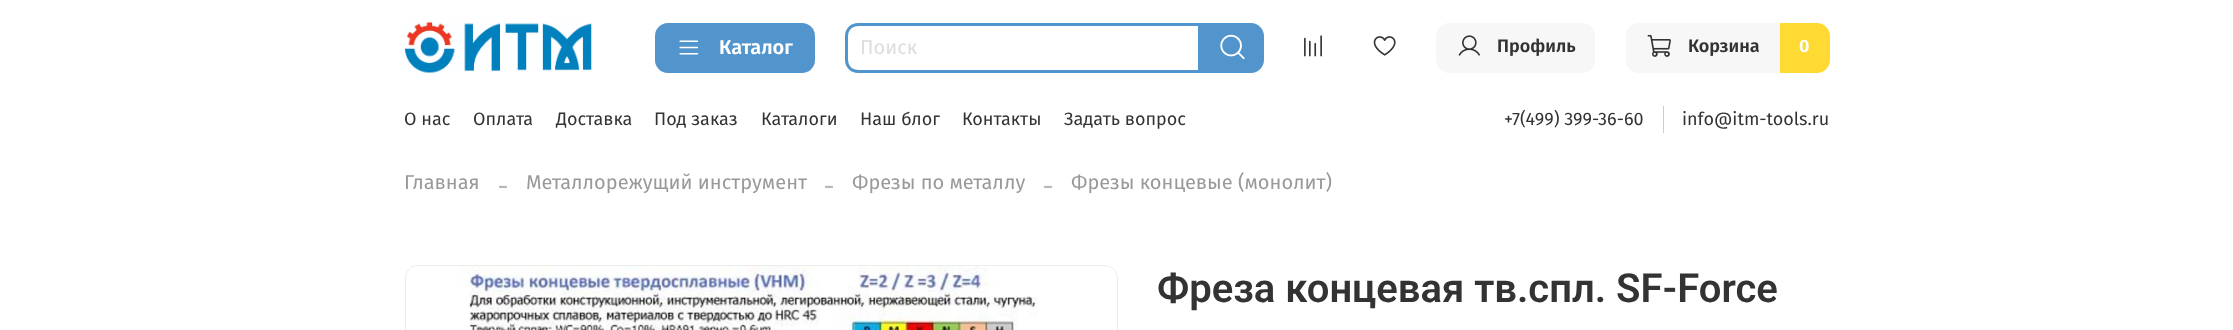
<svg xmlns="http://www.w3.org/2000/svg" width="2233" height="330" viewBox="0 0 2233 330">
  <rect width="100%" height="100%" fill="rgb(255,255,255)"/>
  <image x="405" y="22" width="187" height="51" href="pic1.png"/>
  <rect x="655" y="23" width="160" height="50" rx="13" fill="rgb(81,149,204)"/>
  <image x="679" y="40" width="20" height="15" href="pic2.png"/>
  <text x="719" y="54" font-family="Fira Sans" font-size="20" font-weight="600" fill="rgb(255,255,255)">Каталог</text>
  <path d="M858 24.5H1199.5V71.5H858C851.5 71.5 846.5 66.5 846.5 60V36C846.5 29.5 851.5 24.5 858 24.5Z" fill="none" stroke="rgb(81,149,204)" stroke-width="3"/>
  <text x="860" y="54" font-family="Fira Sans" font-size="20" fill="rgb(221,221,221)">Поиск</text>
  <path d="M1201 23H1251C1258 23 1264 29 1264 36V60C1264 67 1258 73 1251 73H1201Z" fill="rgb(81,149,204)"/>
  <image x="1220" y="34" width="25" height="26" href="pic3.png"/>
  <image x="1304" y="35" width="18" height="22" href="pic4.png"/>
  <image x="1373" y="36" width="23" height="20" href="pic5.png"/>
  <rect x="1436" y="23" width="159" height="50" rx="13" fill="rgb(247,247,247)"/>
  <image x="1458" y="35" width="22" height="21" href="pic6.png"/>
  <text x="1497" y="52" font-family="Fira Sans" font-size="18" font-weight="600" fill="rgb(51,51,51)">Профиль</text>
  <rect x="1626" y="23" width="204" height="50" rx="13" fill="rgb(247,247,247)"/>
  <image x="1647" y="34" width="24" height="23" href="pic7.png"/>
  <text x="1688" y="52" font-family="Fira Sans" font-size="18" font-weight="600" fill="rgb(51,51,51)">Корзина</text>
  <path d="M1780 23H1817C1824 23 1830 29 1830 36V60C1830 67 1824 73 1817 73H1780Z" fill="rgb(255,218,51)"/>
  <text x="1799" y="52" font-family="Fira Sans" font-size="18" font-weight="600" fill="rgb(255,255,255)">0</text>
  <g font-family="Fira Sans" font-size="18" fill="rgb(51,51,51)">
    <text x="404" y="125">О нас</text>
    <text x="473" y="125">Оплата</text>
    <text x="556" y="125">Доставка</text>
    <text x="654" y="125">Под заказ</text>
    <text x="761" y="125">Каталоги</text>
    <text x="860" y="125">Наш блог</text>
    <text x="962" y="125">Контакты</text>
    <text x="1064" y="125">Задать вопрос</text>
  </g>
  <rect x="1663" y="106" width="1" height="27" fill="rgb(204,204,204)"/>
  <g font-family="Fira Sans" font-size="18" fill="rgb(51,51,51)">
    <text x="1504" y="125">+7(499) 399-36-60</text>
    <text x="1682" y="125">info@itm-tools.ru</text>
  </g>
  <text x="404" y="189" font-family="Fira Sans" font-size="20" fill="rgb(153,153,153)">Главная</text>
  <text x="498" y="194" font-family="Liberation Serif" font-size="30" fill="rgb(184,184,184)">-</text>
  <text x="526" y="189" font-family="Fira Sans" font-size="20" fill="rgb(153,153,153)">Металлорежущий инструмент</text>
  <text x="824" y="194" font-family="Liberation Serif" font-size="30" fill="rgb(184,184,184)">-</text>
  <text x="852" y="189" font-family="Fira Sans" font-size="20" fill="rgb(153,153,153)">Фрезы по металлу</text>
  <text x="1043" y="194" font-family="Liberation Serif" font-size="30" fill="rgb(184,184,184)">-</text>
  <text x="1071" y="189" font-family="Fira Sans" font-size="20" fill="rgb(153,153,153)">Фрезы концевые (монолит)</text>
  <rect x="405.5" y="265.5" width="712" height="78" rx="12.5" fill="none" stroke="rgb(237,237,237)"/>
  <image x="460" y="266" width="578" height="64" href="pic8.png"/>
  <text x="1157" y="302" font-family="Roboto" font-size="40" font-weight="600" fill="rgb(51,51,51)">Фреза концевая тв.спл. SF-Force</text>
</svg>
